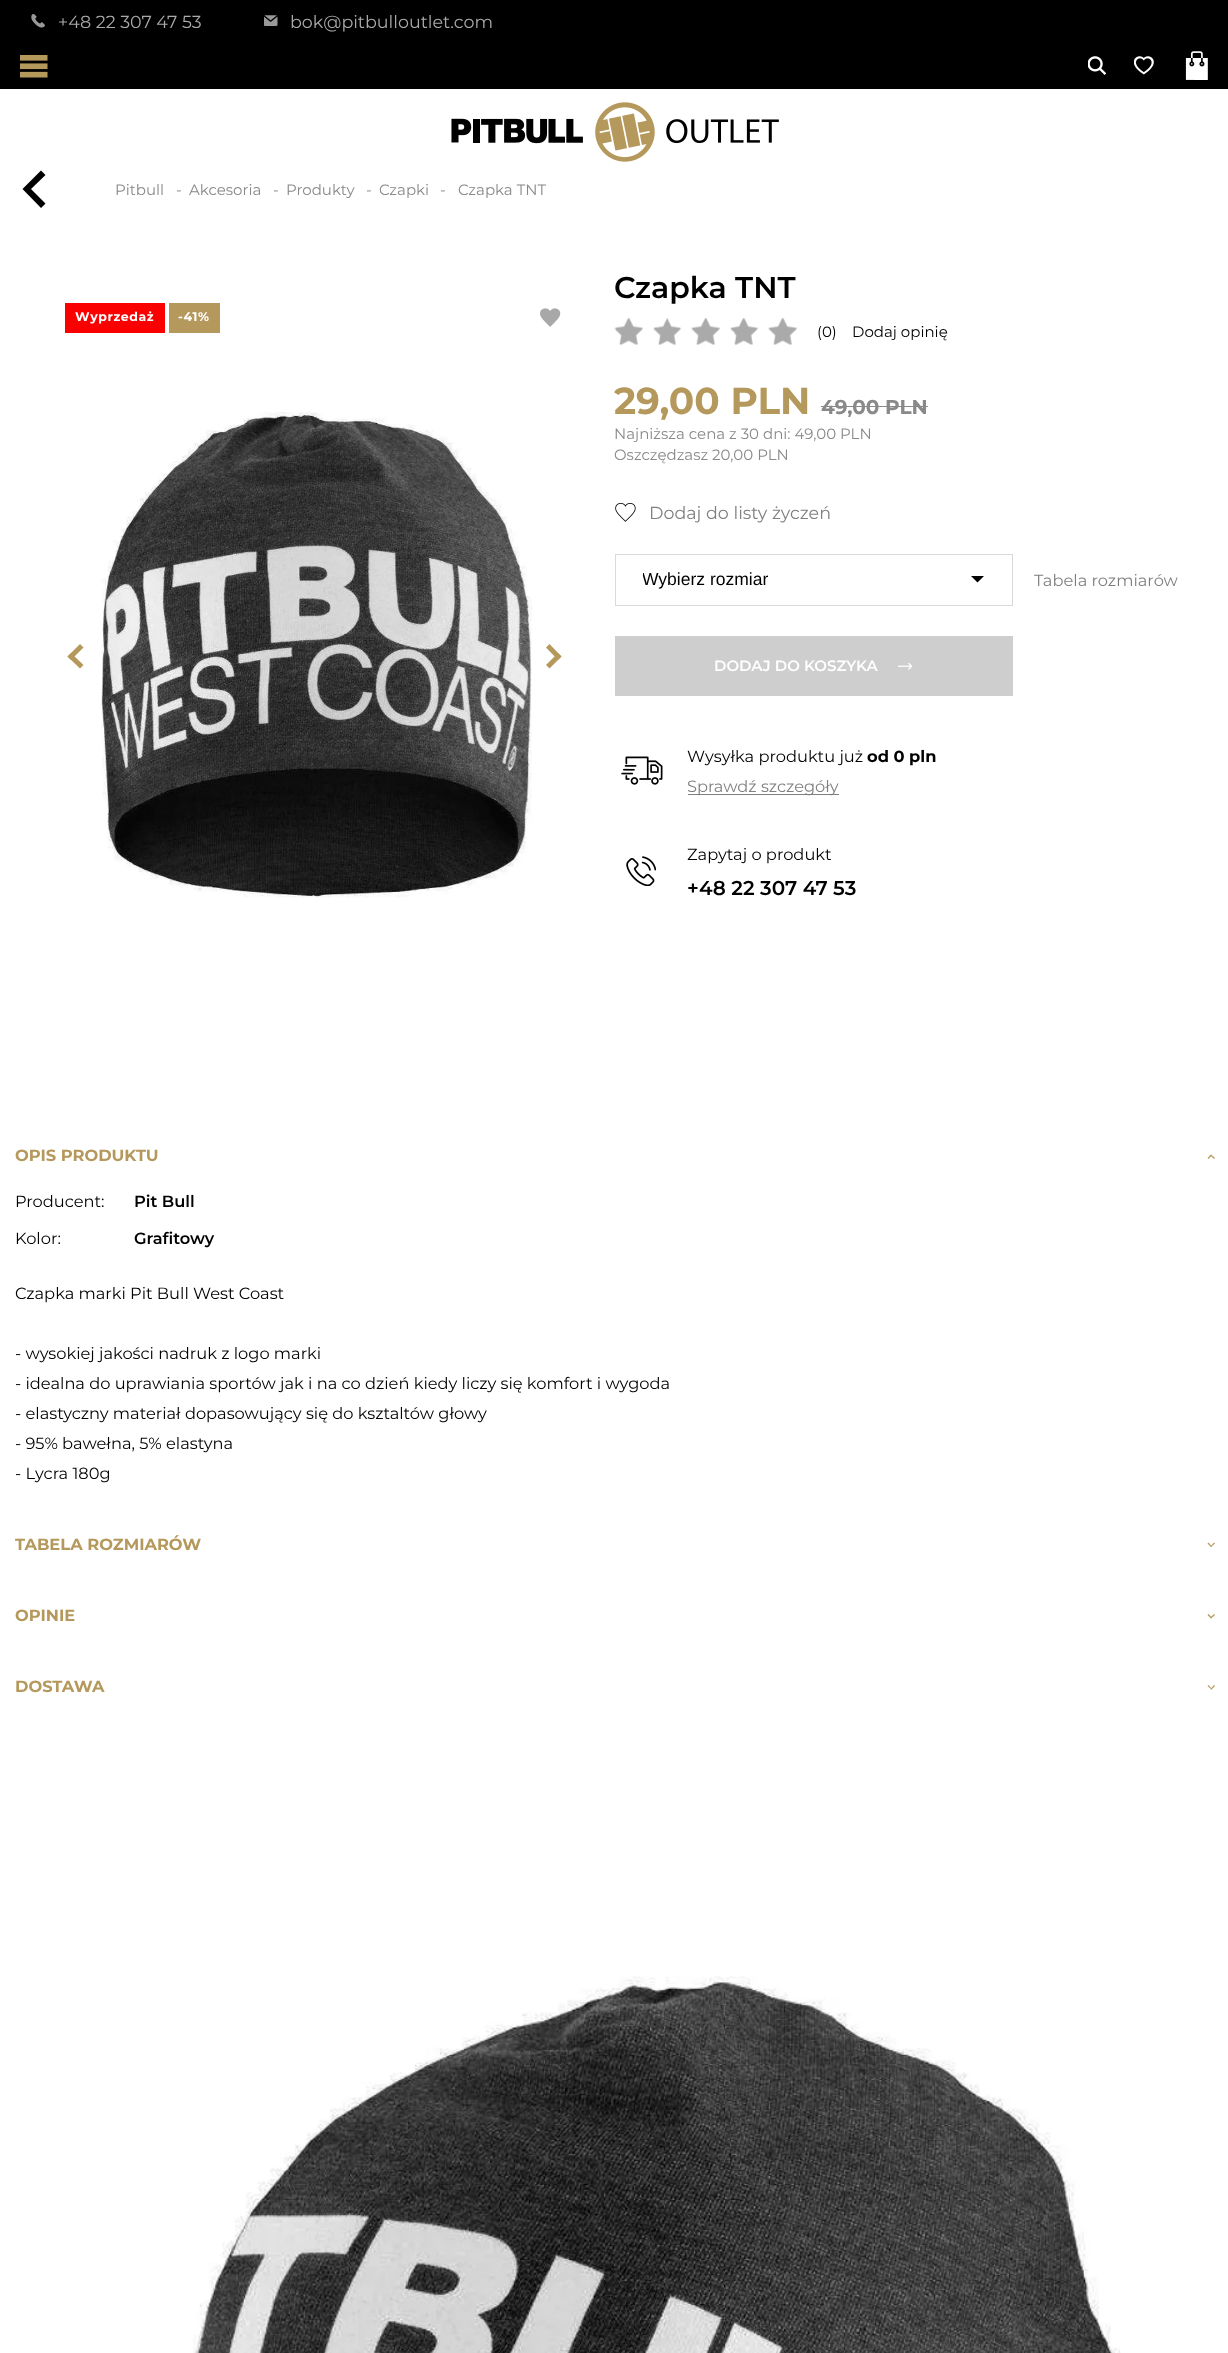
<svg xmlns="http://www.w3.org/2000/svg" width="1228" height="2353" viewBox="0 0 1228 2353">
  <defs>
    <clipPath id="clip1"><rect x="643" y="569" width="312" height="20"/></clipPath>
  </defs>
  <rect width="100%" height="100%" fill="rgb(255,255,255)"/>
  <rect x="0" y="0" width="1228" height="43" fill="rgb(0,0,0)"/>
  <image x="31" y="14" width="14" height="14" href="pic1.png"/>
  <text x="58" y="28" font-family="Montserrat" font-size="17.5" fill="rgb(170,170,170)">+48 22 307 47 53</text>
  <image x="264" y="15" width="14" height="11" href="pic2.png"/>
  <text x="290" y="28" font-family="Montserrat" font-size="17.5" fill="rgb(170,170,170)">bok@pitbulloutlet.com</text>
  <rect x="0" y="43" width="1228" height="46" fill="rgb(0,0,0)"/>
  <image x="20" y="55" width="28" height="23" href="pic3.png"/>
  <image x="1088" y="56" width="18" height="19" href="pic4.png"/>
  <image x="1134" y="56" width="20" height="19" href="pic5.png"/>
  <image x="1185" y="51" width="23" height="29" href="pic6.png"/>
  <image x="451" y="102" width="328" height="60" href="pic7.png"/>
  <path d="M45.5 203.5L31 189L45.5 175L41 170.5L22.5 189L41 208Z" fill="rgb(0,0,0)"/>
  <g font-family="Montserrat" font-size="15" fill="rgb(137,137,137)">
    <text x="115" y="195">Pitbull</text>
    <text x="176" y="195">-</text>
    <text x="189" y="195">Akcesoria</text>
    <text x="273" y="195">-</text>
    <text x="286" y="195">Produkty</text>
    <text x="366" y="195">-</text>
    <text x="379" y="195">Czapki</text>
    <text x="440" y="195">-</text>
    <text x="458" y="195">Czapka TNT</text>
  </g>
  <rect x="65" y="303" width="100" height="30" fill="rgb(250,0,0)"/>
  <text x="75" y="321" font-family="Montserrat" font-size="12.5" font-weight="bold" letter-spacing="0.6" fill="rgb(255,255,255)">Wyprzedaż</text>
  <rect x="169" y="303" width="51" height="30" fill="rgb(181,152,91)"/>
  <text x="178" y="321" font-family="Montserrat" font-size="12.5" font-weight="bold" letter-spacing="0.6" fill="rgb(255,255,255)">-41%</text>
  <image x="540" y="308" width="21" height="19" href="pic8.png"/>
  <image x="101" y="412" width="431" height="486" href="pic9.png"/>
  <path d="M71 653L83.5 665L80 668.5L67.5 656.5Z" fill="rgb(181,152,91)"/>
  <path d="M80 644L83.5 647.5L71 660L67.5 656.5Z" fill="rgb(181,152,91)"/>
  <path d="M558 660L546 647.5L549.5 644L561.5 656.5Z" fill="rgb(181,152,91)"/>
  <path d="M549.5 668.5L546 665L558 653L561.5 656.5Z" fill="rgb(181,152,91)"/>
  <text x="614" y="298" font-family="Montserrat" font-size="30" font-weight="600" fill="rgb(0,0,0)">Czapka TNT</text>
  <image x="614" y="317" width="183" height="28" href="pic10.png"/>
  <g font-family="Montserrat" font-size="15" fill="rgb(0,0,0)">
    <text x="817" y="337">(0)</text>
    <text x="852" y="337">Dodaj opinię</text>
  </g>
  <text x="614" y="414" font-family="Montserrat" font-size="37.5" font-weight="bold" fill="rgb(181,152,91)">29,00 PLN</text>
  <text x="821" y="414" font-family="Montserrat" font-size="20" font-weight="bold" fill="rgb(137,137,137)">49,00 PLN</text>
  <rect x="821" y="406" width="107" height="1" fill="rgb(137,137,137)"/>
  <g font-family="Montserrat" font-size="15" fill="rgb(137,137,137)">
    <text>
      <tspan x="614" y="439">Najniższa cena z 30 dni: 49,00 PLN</tspan>
      <tspan x="614" y="460">Oszczędzasz 20,00 PLN</tspan>
    </text>
  </g>
  <image x="615" y="503" width="21" height="19" href="pic11.png"/>
  <text x="649" y="519" font-family="Montserrat" font-size="17.5" fill="rgb(127,127,127)">Dodaj do listy życzeń</text>
  <rect x="615.5" y="554.5" width="397" height="51" fill="none" stroke="rgb(217,217,217)"/>
  <g clip-path="url(#clip1)">
    <text x="642" y="585" font-family="Liberation Sans" font-size="17.5" fill="rgb(0,0,0)">Wybierz rozmiar</text>
  </g>
  <path d="M971 576H984L977.5 582.5Z" fill="rgb(0,0,0)"/>
  <text x="1034" y="586" font-family="Montserrat" font-size="16.25" fill="rgb(127,127,127)">Tabela rozmiarów</text>
  <rect x="615" y="636" width="398" height="60" fill="rgb(206,206,206)"/>
  <text x="714" y="671" font-family="Montserrat" font-size="15" font-weight="600" fill="rgb(255,255,255)">DODAJ DO KOSZYKA</text>
  <image x="898" y="663" width="15" height="7" href="pic12.png"/>
  <image x="621" y="756" width="42" height="29" href="pic13.png"/>
  <text x="687" y="762" font-family="Montserrat" font-size="16.25" fill="rgb(0,0,0)">Wysyłka produktu już</text>
  <text x="867" y="762" font-family="Montserrat" font-size="16.25" font-weight="bold" fill="rgb(0,0,0)">od 0 pln</text>
  <rect x="688" y="794" width="151" height="1" fill="rgb(127,127,127)"/>
  <text x="687" y="792" font-family="Montserrat" font-size="16.25" fill="rgb(127,127,127)">Sprawdź szczegóły</text>
  <image x="626" y="856" width="30" height="30" href="pic14.png"/>
  <text x="687" y="860" font-family="Montserrat" font-size="16.25" fill="rgb(0,0,0)">Zapytaj o produkt</text>
  <text x="687" y="895" font-family="Montserrat" font-size="20" font-weight="600" fill="rgb(0,0,0)">+48 22 307 47 53</text>
  <text x="15" y="1161" font-family="Montserrat" font-size="16.25" font-weight="bold" fill="rgb(181,152,91)">OPIS PRODUKTU</text>
  <path d="M1208.5 1159L1207.5 1158L1211 1154.5L1212 1155.5Z" fill="rgb(181,152,91)"/>
  <path d="M1214 1159L1210.5 1155.5L1211 1154.5L1215 1158Z" fill="rgb(181,152,91)"/>
  <text x="15" y="1207" font-family="Montserrat" font-size="16.25" fill="rgb(0,0,0)">Producent:</text>
  <text x="134" y="1207" font-family="Montserrat" font-size="16.25" font-weight="600" fill="rgb(0,0,0)">Pit Bull</text>
  <text x="15" y="1244" font-family="Montserrat" font-size="16.25" fill="rgb(0,0,0)">Kolor:</text>
  <text x="134" y="1244" font-family="Montserrat" font-size="16.25" font-weight="600" fill="rgb(0,0,0)">Grafitowy</text>
  <g font-family="Montserrat" font-size="16.25" fill="rgb(0,0,0)">
    <text x="15" y="1299">Czapka marki Pit Bull West Coast</text>
    <text>
      <tspan x="15" y="1359">- wysokiej jakości nadruk z logo marki</tspan>
      <tspan x="15" y="1389">- idealna do uprawiania sportów jak i na co dzień kiedy liczy się komfort i wygoda</tspan>
      <tspan x="15" y="1419">- elastyczny materiał dopasowujący się do ksztaltów głowy</tspan>
      <tspan x="15" y="1449">- 95% bawełna, 5% elastyna</tspan>
      <tspan x="15" y="1479">- Lycra 180g</tspan>
    </text>
  </g>
  <text x="15" y="1550" font-family="Montserrat" font-size="16.25" font-weight="bold" fill="rgb(181,152,91)">TABELA ROZMIARÓW</text>
  <path d="M1214 1542.5L1215 1543.5L1211 1547L1210.5 1546.5Z" fill="rgb(181,152,91)"/>
  <path d="M1208.5 1542.5L1212 1546.5L1211 1547L1207.5 1543.5Z" fill="rgb(181,152,91)"/>
  <text x="15" y="1621" font-family="Montserrat" font-size="16.25" font-weight="bold" fill="rgb(181,152,91)">OPINIE</text>
  <path d="M1214 1614L1215 1615L1211 1618.5L1210.5 1617.5Z" fill="rgb(181,152,91)"/>
  <path d="M1208.5 1614L1212 1617.5L1211 1618.5L1207.5 1615Z" fill="rgb(181,152,91)"/>
  <text x="15" y="1692" font-family="Montserrat" font-size="16.25" font-weight="bold" fill="rgb(181,152,91)">DOSTAWA</text>
  <path d="M1214 1685L1215 1686L1211.5 1689.5L1210.5 1689Z" fill="rgb(181,152,91)"/>
  <path d="M1208.5 1685L1212 1689L1211.5 1689.5L1207.5 1686Z" fill="rgb(181,152,91)"/>
  <image x="193" y="1976" width="928" height="377" href="pic15.png"/>
</svg>
